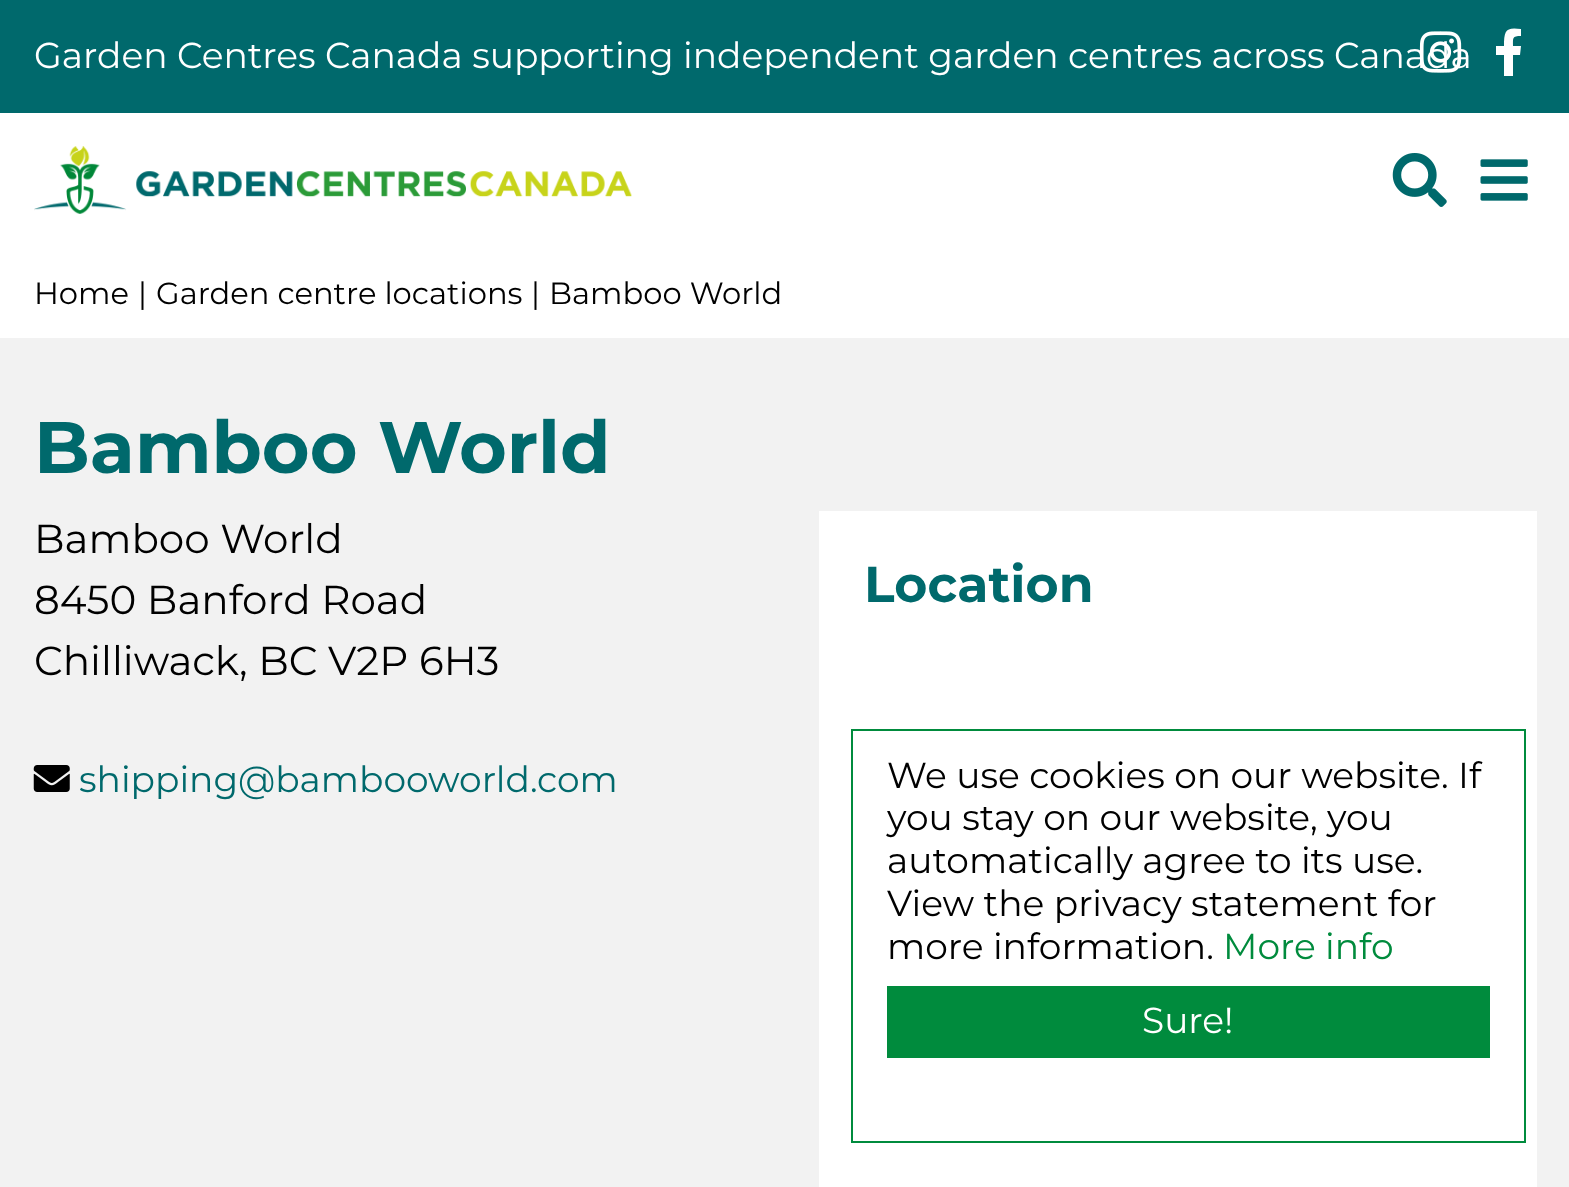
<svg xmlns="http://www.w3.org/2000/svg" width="1569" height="1187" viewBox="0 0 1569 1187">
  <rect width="100%" height="100%" fill="rgb(242,242,242)"/>
  <rect x="0" y="0" width="1569" height="113" fill="rgb(0,105,108)"/>
  <text x="34" y="68" font-family="Montserrat" font-size="36" fill="rgb(255,255,255)">Garden Centres Canada supporting independent garden centres across Canada</text>
  <image x="1419" y="31" width="43" height="42" href="pic1.png"/>
  <path d="M1520 55H1513V76H1504V55H1496V46H1504C1504 30 1506 27 1521 29V36C1512 36 1513 38 1513 46H1521Z" fill="rgb(255,255,255)"/>
  <rect x="0" y="113" width="1569" height="225" fill="rgb(255,255,255)"/>
  <image x="34" y="146" width="598" height="68" href="pic2.png"/>
  <image x="1392" y="153" width="55" height="54" href="pic3.png"/>
  <image x="1480" y="159" width="48" height="42" href="pic4.png"/>
  <text x="34" y="473" font-family="Montserrat" font-size="73" font-weight="bold" fill="rgb(0,105,108)">Bamboo World</text>
  <g font-family="Montserrat" font-size="40.5" fill="rgb(0,0,0)">
    <text>
      <tspan x="34" y="553">Bamboo World</tspan>
      <tspan x="34" y="614">8450 Banford Road</tspan>
      <tspan x="34" y="675">Chilliwack</tspan>
    </text>
    <text x="239" y="675">, BC V2P 6H3</text>
  </g>
  <image x="33" y="765" width="37" height="27" href="pic5.png"/>
  <text x="79" y="792" font-family="Montserrat" font-size="36" fill="rgb(0,105,108)">shipping@bambooworld.com</text>
  <rect x="819" y="511" width="718" height="676" fill="rgb(255,255,255)"/>
  <text x="864" y="602" font-family="Montserrat" font-size="50.5" font-weight="bold" fill="rgb(0,105,108)">Location</text>
  <g font-family="Montserrat" font-size="30.6" fill="rgb(0,0,0)">
    <text x="34" y="304">Home</text>
    <text x="138" y="304">|</text>
    <text x="156" y="304">Garden centre locations</text>
    <text x="531" y="304">|</text>
    <text x="549" y="304">Bamboo World</text>
  </g>
  <rect x="852" y="730" width="673" height="412" fill="none" stroke="rgb(0,139,61)" stroke-width="2"/>
  <g font-family="Montserrat" font-size="36" fill="rgb(0,0,0)">
    <text>
      <tspan x="887" y="788">We use cookies on our website. If</tspan>
      <tspan x="887" y="830">you stay on our website, you</tspan>
      <tspan x="887" y="873">automatically agree to its use.</tspan>
      <tspan x="887" y="916">View the privacy statement for</tspan>
      <tspan x="887" y="959">more information.</tspan>
    </text>
  </g>
  <text x="1223" y="959" font-family="Montserrat" font-size="36" fill="rgb(0,139,61)">More info</text>
  <rect x="887" y="986" width="603" height="72" fill="rgb(0,139,61)"/>
  <text x="1142" y="1033" font-family="Montserrat" font-size="36" fill="rgb(255,255,255)">Sure!</text>
</svg>
